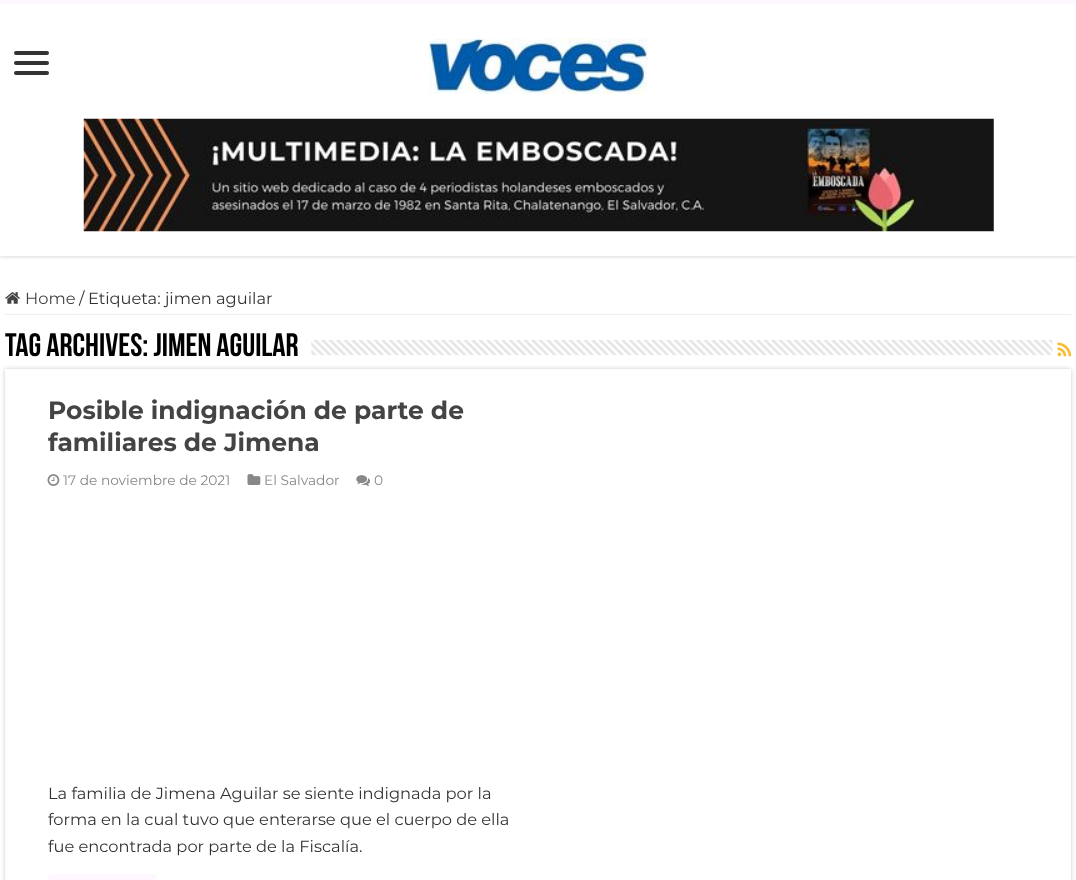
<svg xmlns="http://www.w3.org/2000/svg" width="1076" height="880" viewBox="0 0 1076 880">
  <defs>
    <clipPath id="clip1"><rect x="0" y="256" width="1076" height="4"/></clipPath>
    <clipPath id="clip2"><path d="M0 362H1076V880H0ZM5 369H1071V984H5Z" clip-rule="evenodd"/></clipPath>
  </defs>
  <rect width="100%" height="100%" fill="rgb(255,255,255)"/>
  <g clip-path="url(#clip1)">
    <rect x="0" y="0" width="1076" height="256" fill="rgb(202,202,202)" filter="blur(2px)"/>
  </g>
  <rect x="0" y="0" width="1076" height="4" fill="rgb(255,247,255)"/>
  <rect x="14" y="51" width="35" height="4" rx="2" fill="rgb(51,51,51)"/>
  <rect x="14" y="61" width="35" height="4" rx="2" fill="rgb(51,51,51)"/>
  <rect x="14" y="71" width="35" height="4" rx="2" fill="rgb(51,51,51)"/>
  <image x="428" y="38" width="220" height="56" href="pic1.png"/>
  <image x="83" y="118" width="911" height="114" href="pic2.png"/>
  <rect x="5" y="314" width="1066" height="1" fill="rgb(238,238,238)"/>
  <image x="5" y="292" width="15" height="12" href="pic3.png"/>
  <text x="25" y="304" font-family="Montserrat" font-size="16.25" fill="rgb(68,68,68)">Home</text>
  <g font-family="Montserrat" font-size="16.25" fill="rgb(51,51,51)">
    <text x="79" y="304">/</text>
    <text x="88" y="304">Etiqueta: jimen aguilar</text>
  </g>
  <text x="5" y="356" font-family="Bebas Neue" font-size="32.5" font-weight="bold" fill="rgb(0,0,0)">Tag Archives: jimen aguilar</text>
  <image x="311" y="340" width="742" height="15" href="pic4.png"/>
  <image x="1057" y="342" width="14" height="15" href="pic5.png"/>
  <g clip-path="url(#clip2)">
    <rect x="5" y="369" width="1066" height="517" fill="rgb(202,202,202)" filter="blur(2px)"/>
  </g>
  <g font-family="Montserrat" font-size="25" font-weight="bold" fill="rgb(68,68,68)">
    <text>
      <tspan x="48" y="419">Posible indignación de parte de</tspan>
      <tspan x="48" y="451">familiares de Jimena</tspan>
    </text>
  </g>
  <image x="47" y="474" width="13" height="12" href="pic6.png"/>
  <text x="63" y="485" font-family="Montserrat" font-size="13.75" fill="rgb(136,136,136)">17 de noviembre de 2021</text>
  <image x="247" y="474" width="14" height="11" href="pic7.png"/>
  <text x="264" y="485" font-family="Montserrat" font-size="13.75" fill="rgb(136,136,136)">El Salvador</text>
  <image x="356" y="475" width="14" height="11" href="pic8.png"/>
  <text x="374" y="485" font-family="Montserrat" font-size="13.75" fill="rgb(136,136,136)">0</text>
  <g font-family="Montserrat" font-size="16.25" fill="rgb(51,51,51)">
    <text>
      <tspan x="48" y="799">La familia de Jimena Aguilar se siente indignada por la</tspan>
      <tspan x="48" y="825">forma en la cual tuvo que enterarse que el cuerpo de ella</tspan>
      <tspan x="48" y="852">fue encontrada por parte de la Fiscalía.</tspan>
    </text>
  </g>
  <rect x="48" y="874" width="108" height="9" rx="2.5" fill="rgb(255,247,255)"/>
</svg>
